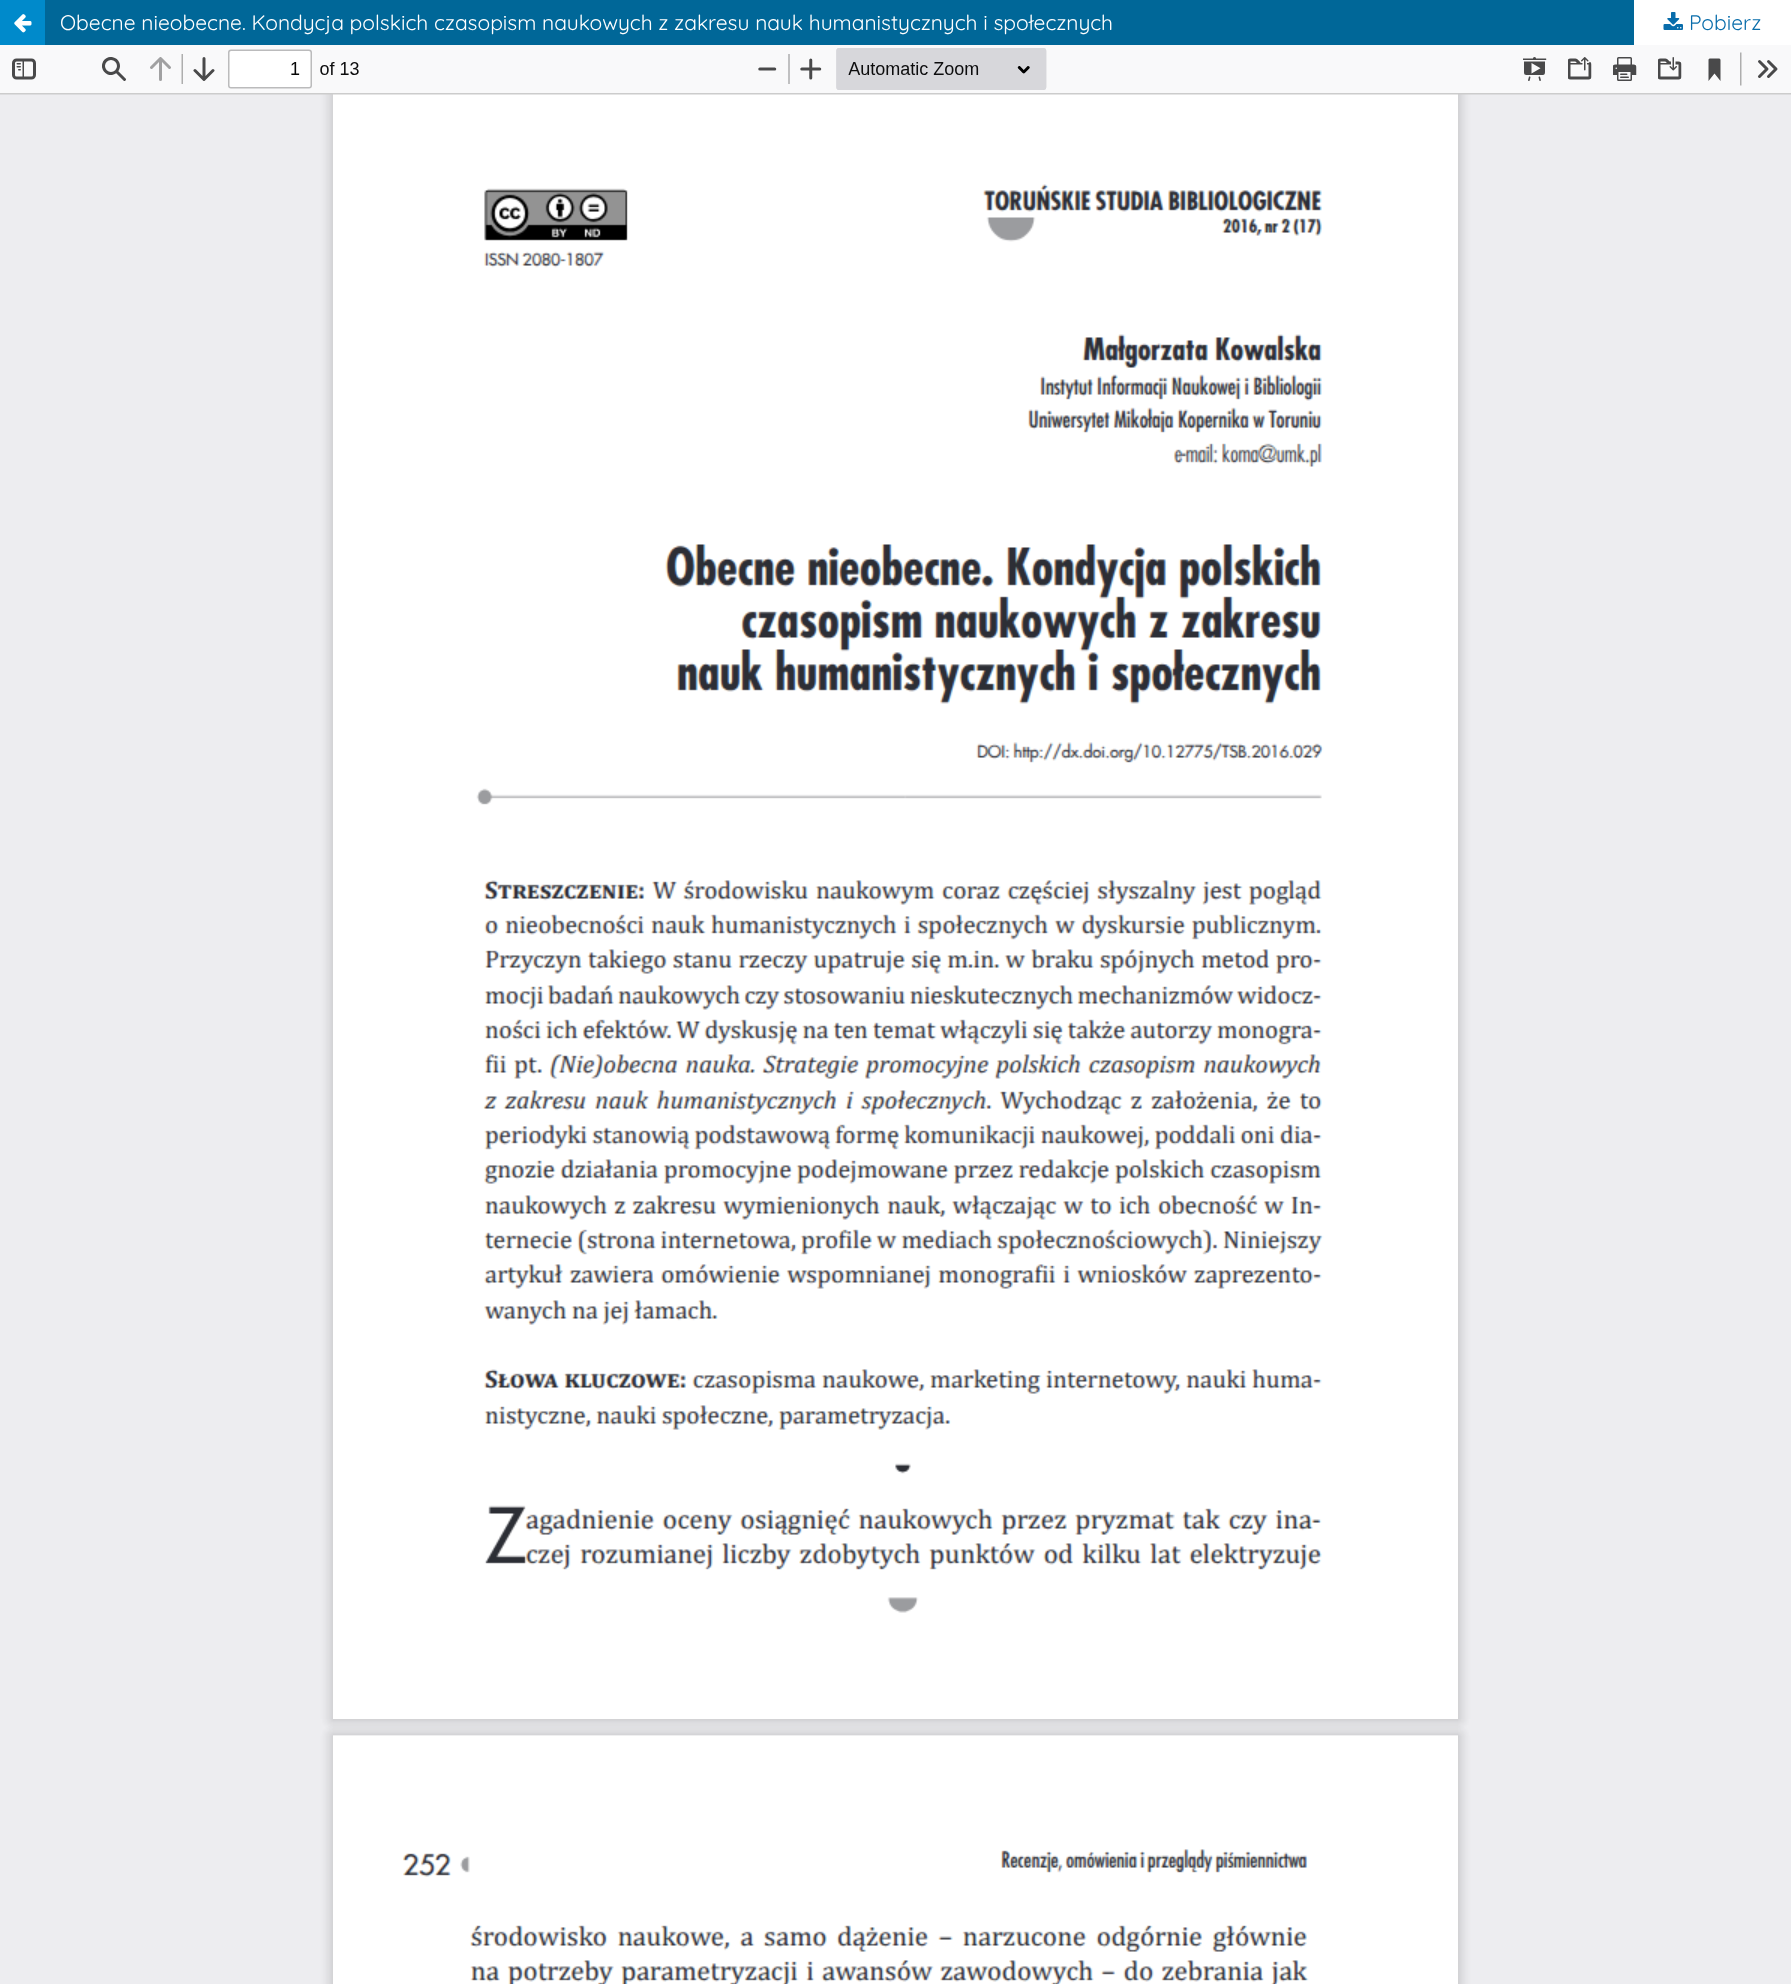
<svg xmlns="http://www.w3.org/2000/svg" width="1791" height="1984" viewBox="0 0 1791 1984">
  <rect width="100%" height="100%" fill="rgb(255,255,255)"/>
  <rect x="45" y="0" width="1589" height="45" fill="rgb(0,103,152)"/>
  <rect x="0" y="0" width="45" height="45" fill="rgb(0,138,203)"/>
  <image x="14" y="14" width="18" height="19" href="pic1.png"/>
  <text x="60" y="30" font-family="Quicksand" font-size="21" fill="rgb(255,255,255)">Obecne nieobecne. Kondycja polskich czasopism naukowych z zakresu nauk humanistycznych i społecznych</text>
  <image x="1663" y="12" width="20" height="18" href="pic2.png"/>
  <text x="1689" y="30" font-family="Quicksand" font-size="21" fill="rgb(9,109,171)">Pobierz</text>
  <image x="0" y="45" width="1791" height="1939" href="pic3.png"/>
</svg>
